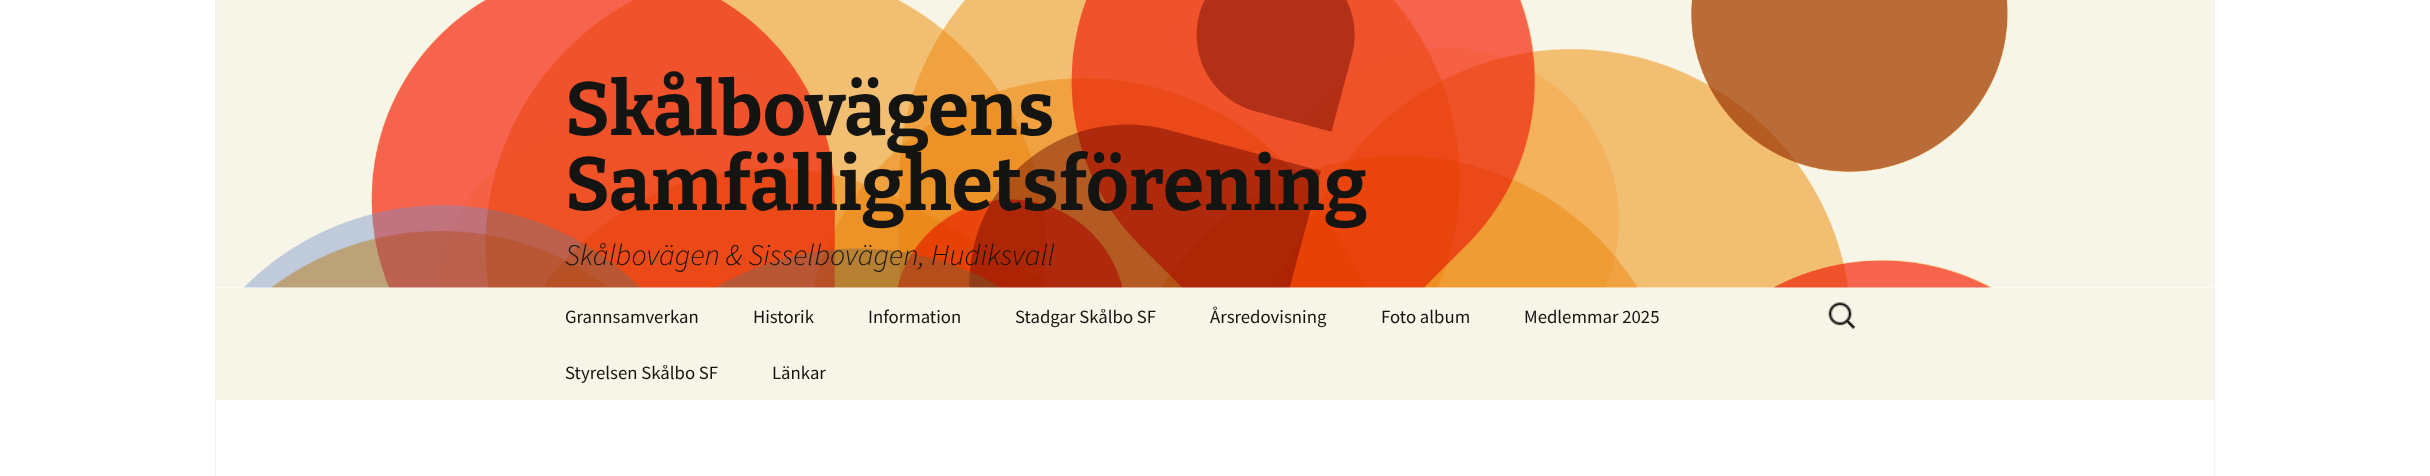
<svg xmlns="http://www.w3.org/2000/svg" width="2430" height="476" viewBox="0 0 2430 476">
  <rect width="100%" height="100%" fill="rgb(255,255,255)"/>
  <rect x="2214" y="0" width="1" height="476" fill="rgb(242,242,242)"/>
  <rect x="215" y="0" width="1" height="476" fill="rgb(242,242,242)"/>
  <image x="216" y="0" width="1998" height="288" href="pic1.png"/>
  <g font-family="Bitter" font-size="75" font-weight="100" fill="rgb(20,20,18)">
    <text>
      <tspan x="565" y="135">Skålbovägens</tspan>
      <tspan x="565" y="210">Samfällighetsförening</tspan>
    </text>
  </g>
  <text x="565" y="265" font-family="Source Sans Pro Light" font-size="30" font-weight="300" font-style="italic" fill="rgb(20,20,18)">Skålbovägen &amp; Sisselbovägen, Hudiksvall</text>
  <rect x="216" y="288" width="1998" height="112" fill="rgb(247,245,231)"/>
  <g font-family="Source Sans Pro" font-size="18.75" fill="rgb(20,20,18)">
    <text x="565" y="323">Grannsamverkan</text>
    <text x="753" y="323">Historik</text>
    <text x="868" y="323">Information</text>
    <text x="1015" y="323">Stadgar Skålbo SF</text>
    <text x="1210" y="323">Årsredovisning</text>
    <text x="1381" y="323">Foto album</text>
    <text x="1524" y="323">Medlemmar 2025</text>
    <text x="565" y="379">Styrelsen Skålbo SF</text>
    <text x="772" y="379">Länkar</text>
  </g>
  <image x="1828" y="302" width="28" height="27" href="pic2.png"/>
</svg>
